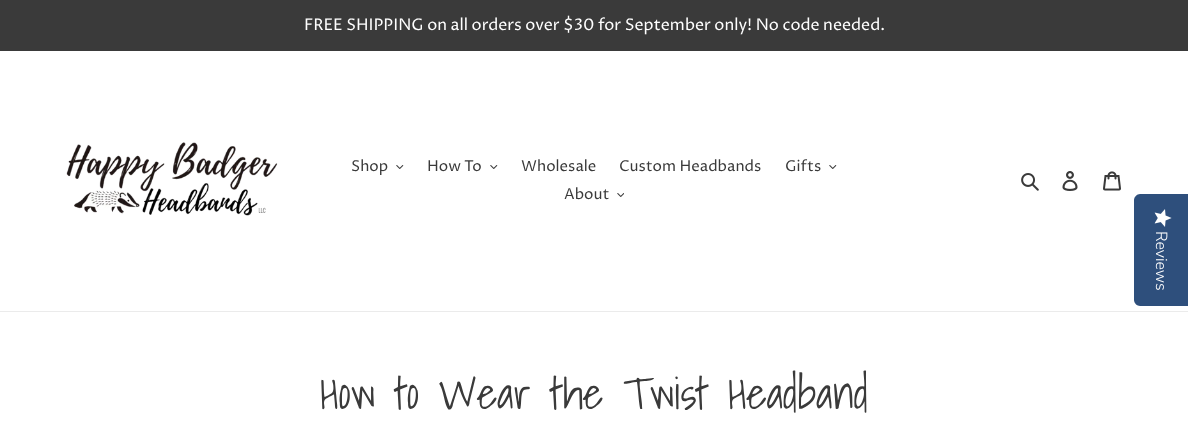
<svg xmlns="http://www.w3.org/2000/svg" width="1188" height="443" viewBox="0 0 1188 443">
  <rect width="100%" height="100%" fill="rgb(255,255,255)"/>
  <rect x="0" y="0" width="1188" height="51" fill="rgb(58,58,58)"/>
  <text x="304" y="30" font-family="Proza Libre" font-size="16" fill="rgb(255,255,255)">FREE SHIPPING on all orders over $30 for September only! No code needed.</text>
  <rect x="0" y="311" width="1188" height="1" fill="rgb(235,235,235)"/>
  <image x="66" y="142" width="212" height="74" href="pic1.png"/>
  <text x="351" y="171" font-family="Proza Libre" font-size="15" fill="rgb(58,58,58)">Shop</text>
  <image x="396" y="165" width="8" height="4" href="pic2.png"/>
  <text x="427" y="171" font-family="Proza Libre" font-size="15" fill="rgb(58,58,58)">How To</text>
  <image x="490" y="165" width="8" height="4" href="pic2.png"/>
  <g font-family="Proza Libre" font-size="15" fill="rgb(58,58,58)">
    <text x="521" y="171">Wholesale</text>
    <text x="619" y="171">Custom Headbands</text>
    <text x="785" y="171">Gifts</text>
  </g>
  <image x="829" y="165" width="8" height="4" href="pic2.png"/>
  <text x="564" y="199" font-family="Proza Libre" font-size="15" fill="rgb(58,58,58)">About</text>
  <image x="617" y="193" width="7" height="4" href="pic3.png"/>
  <image x="1021" y="173" width="18" height="18" href="pic4.png"/>
  <image x="1062" y="171" width="16" height="20" href="pic5.png"/>
  <image x="1103" y="171" width="18" height="20" href="pic6.png"/>
  <path d="M1188 194V306H1140C1137 306 1134 303 1134 300V200C1134 197 1137 194 1140 194Z" fill="rgb(46,79,124)"/>
  <image x="1154" y="209" width="18" height="18" href="pic7.png"/>
  <text x="1156" y="231" transform="rotate(90 1156 231)" font-family="Nunito Sans" font-size="16" font-weight="300" fill="rgb(255,255,255)">Reviews</text>
  <text x="320" y="409" font-family="Shadows Into Light" font-size="44" fill="rgb(58,58,58)">How to Wear the Twist Headband</text>
</svg>
